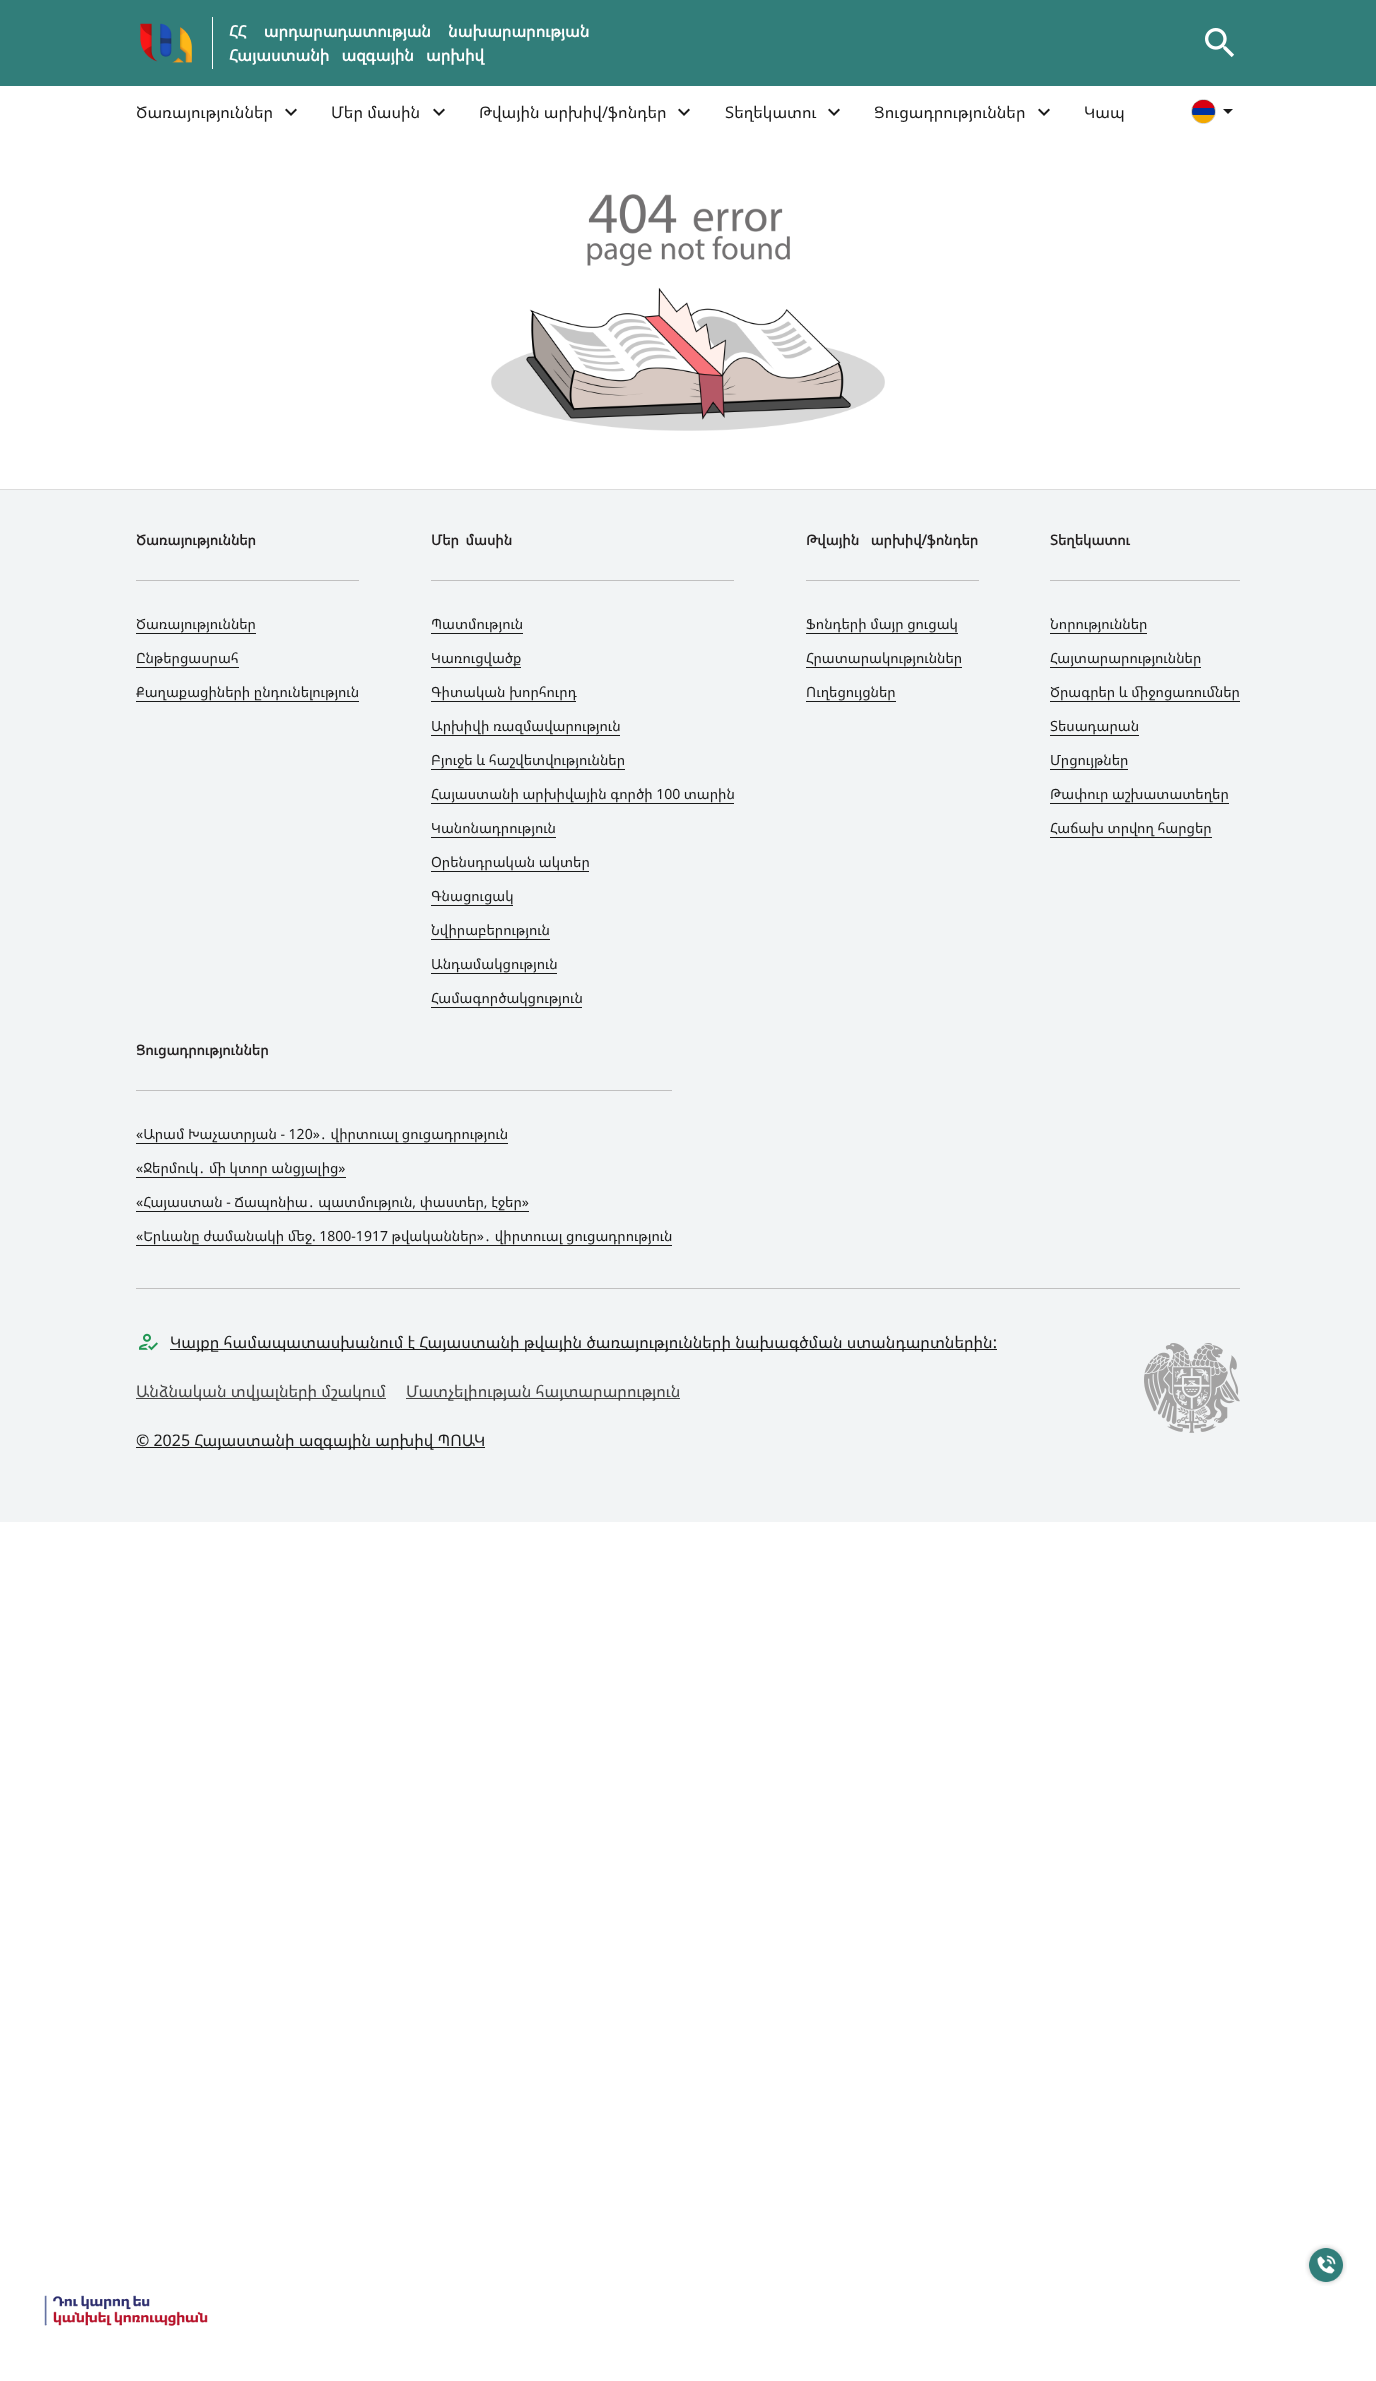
<svg xmlns="http://www.w3.org/2000/svg" width="1376" height="2381" viewBox="0 0 1376 2381">
  <defs>
    <clipPath id="clip1"><rect x="1192" y="100" width="23" height="23" rx="11.5"/></clipPath>
  </defs>
  <rect width="100%" height="100%" fill="rgb(255,255,255)"/>
  <rect x="0" y="0" width="1376" height="86" fill="rgb(49,126,122)"/>
  <rect x="212" y="17" width="1" height="52" fill="rgb(255,255,255)"/>
  <image x="140" y="23" width="52" height="40" href="pic1.png"/>
  <g font-family="Noto Sans Armenian" font-size="16" font-weight="bold" fill="rgb(255,255,255)">
    <text>
      <tspan x="229" y="37" word-spacing="13">ՀՀ արդարադատության նախարարության</tspan>
      <tspan x="229" y="61" word-spacing="8">Հայաստանի ազգային արխիվ</tspan>
    </text>
  </g>
  <image x="1205" y="28" width="30" height="30" href="pic2.png"/>
  <text x="136" y="118" font-family="Noto Sans Armenian" font-size="16" fill="rgb(26,26,26)">Ծառայություններ</text>
  <image x="285" y="108" width="12" height="8" href="pic3.png"/>
  <text x="331" y="118" font-family="Noto Sans Armenian" font-size="16" fill="rgb(26,26,26)">Մեր մասին</text>
  <image x="433" y="108" width="12" height="8" href="pic3.png"/>
  <text x="479" y="118" font-family="Noto Sans Armenian" font-size="16" fill="rgb(26,26,26)">Թվային արխիվ/ֆոնդեր</text>
  <image x="678" y="108" width="12" height="8" href="pic3.png"/>
  <text x="725" y="118" font-family="Noto Sans Armenian" font-size="16" fill="rgb(26,26,26)">Տեղեկատու</text>
  <image x="828" y="108" width="12" height="8" href="pic3.png"/>
  <text x="874" y="118" font-family="Noto Sans Armenian" font-size="16" fill="rgb(26,26,26)">Ցուցադրություններ</text>
  <image x="1038" y="108" width="12" height="8" href="pic3.png"/>
  <text x="1084" y="118" font-family="Noto Sans Armenian" font-size="16" fill="rgb(26,26,26)">Կապ</text>
  <circle cx="1203.5" cy="111.5" r="12" fill="none" stroke="rgb(204,204,204)"/>
  <circle cx="1203.5" cy="111.5" r="11.5" fill="rgb(242,168,0)"/>
  <g clip-path="url(#clip1)">
    <path d="M1203.5 100C1210 100 1215 105 1215 111.5V115H1192V111.5C1192 105 1197 100 1203.5 100Z" fill="rgb(0,51,160)"/>
    <rect x="1192" y="100" width="23" height="8" fill="rgb(217,0,18)"/>
  </g>
  <path d="M1223 109L1228 114L1233 109Z" fill="rgb(26,26,26)"/>
  <image x="491" y="194" width="394" height="237" href="pic4.png"/>
  <rect x="0" y="490" width="1376" height="1032" fill="rgb(242,244,245)"/>
  <rect x="0" y="489" width="1376" height="1" fill="rgb(220,220,220)"/>
  <rect x="136" y="1288" width="1104" height="1" fill="rgb(193,192,192)"/>
  <rect x="136" y="580" width="223" height="1" fill="rgb(193,192,192)"/>
  <text x="136" y="545" font-family="Noto Sans Armenian" font-size="14" font-weight="bold" fill="rgb(35,31,32)">Ծառայություններ</text>
  <text x="136" y="629" font-family="Noto Sans Armenian" font-size="14" fill="rgb(26,26,26)">Ծառայություններ</text>
  <rect x="136" y="633" width="120" height="1" fill="rgb(26,26,26)"/>
  <text x="136" y="663" font-family="Noto Sans Armenian" font-size="14" fill="rgb(26,26,26)">Ընթերցասրահ</text>
  <rect x="136" y="667" width="103" height="1" fill="rgb(26,26,26)"/>
  <text x="136" y="697" font-family="Noto Sans Armenian" font-size="14" fill="rgb(26,26,26)">Քաղաքացիների ընդունելություն</text>
  <rect x="136" y="701" width="223" height="1" fill="rgb(26,26,26)"/>
  <rect x="431" y="580" width="303" height="1" fill="rgb(193,192,192)"/>
  <text x="431" y="545" word-spacing="3" font-family="Noto Sans Armenian" font-size="14" font-weight="bold" fill="rgb(35,31,32)">Մեր մասին</text>
  <text x="431" y="629" font-family="Noto Sans Armenian" font-size="14" fill="rgb(26,26,26)">Պատմություն</text>
  <rect x="431" y="633" width="92" height="1" fill="rgb(26,26,26)"/>
  <text x="431" y="663" font-family="Noto Sans Armenian" font-size="14" fill="rgb(26,26,26)">Կառուցվածք</text>
  <rect x="431" y="667" width="90" height="1" fill="rgb(26,26,26)"/>
  <text x="431" y="697" font-family="Noto Sans Armenian" font-size="14" fill="rgb(26,26,26)">Գիտական խորհուրդ</text>
  <rect x="431" y="701" width="145" height="1" fill="rgb(26,26,26)"/>
  <text x="431" y="731" font-family="Noto Sans Armenian" font-size="14" fill="rgb(26,26,26)">Արխիվի ռազմավարություն</text>
  <rect x="431" y="735" width="189" height="1" fill="rgb(26,26,26)"/>
  <text x="431" y="765" font-family="Noto Sans Armenian" font-size="14" fill="rgb(26,26,26)">Բյուջե և հաշվետվություններ</text>
  <rect x="431" y="769" width="194" height="1" fill="rgb(26,26,26)"/>
  <text x="431" y="799" font-family="Noto Sans Armenian" font-size="14" fill="rgb(26,26,26)">Հայաստանի արխիվային գործի 100 տարին</text>
  <rect x="431" y="803" width="303" height="1" fill="rgb(26,26,26)"/>
  <text x="431" y="833" font-family="Noto Sans Armenian" font-size="14" fill="rgb(26,26,26)">Կանոնադրություն</text>
  <rect x="431" y="837" width="125" height="1" fill="rgb(26,26,26)"/>
  <text x="431" y="867" font-family="Noto Sans Armenian" font-size="14" fill="rgb(26,26,26)">Օրենսդրական ակտեր</text>
  <rect x="431" y="871" width="158" height="1" fill="rgb(26,26,26)"/>
  <text x="431" y="901" font-family="Noto Sans Armenian" font-size="14" fill="rgb(26,26,26)">Գնացուցակ</text>
  <rect x="431" y="905" width="82" height="1" fill="rgb(26,26,26)"/>
  <text x="431" y="935" font-family="Noto Sans Armenian" font-size="14" fill="rgb(26,26,26)">Նվիրաբերություն</text>
  <rect x="431" y="939" width="119" height="1" fill="rgb(26,26,26)"/>
  <text x="431" y="969" font-family="Noto Sans Armenian" font-size="14" fill="rgb(26,26,26)">Անդամակցություն</text>
  <rect x="431" y="973" width="126" height="1" fill="rgb(26,26,26)"/>
  <text x="431" y="1003" font-family="Noto Sans Armenian" font-size="14" fill="rgb(26,26,26)">Համագործակցություն</text>
  <rect x="431" y="1007" width="151" height="1" fill="rgb(26,26,26)"/>
  <rect x="806" y="580" width="173" height="1" fill="rgb(193,192,192)"/>
  <text x="806" y="545" word-spacing="8" font-family="Noto Sans Armenian" font-size="14" font-weight="bold" fill="rgb(35,31,32)">Թվային արխիվ/ֆոնդեր</text>
  <text x="806" y="629" font-family="Noto Sans Armenian" font-size="14" fill="rgb(26,26,26)">Ֆոնդերի մայր ցուցակ</text>
  <rect x="806" y="633" width="152" height="1" fill="rgb(26,26,26)"/>
  <text x="806" y="663" font-family="Noto Sans Armenian" font-size="14" fill="rgb(26,26,26)">Հրատարակություններ</text>
  <rect x="806" y="667" width="156" height="1" fill="rgb(26,26,26)"/>
  <text x="806" y="697" font-family="Noto Sans Armenian" font-size="14" fill="rgb(26,26,26)">Ուղեցույցներ</text>
  <rect x="806" y="701" width="90" height="1" fill="rgb(26,26,26)"/>
  <rect x="1050" y="580" width="190" height="1" fill="rgb(193,192,192)"/>
  <text x="1050" y="545" font-family="Noto Sans Armenian" font-size="14" font-weight="bold" fill="rgb(35,31,32)">Տեղեկատու</text>
  <text x="1050" y="629" font-family="Noto Sans Armenian" font-size="14" fill="rgb(26,26,26)">Նորություններ</text>
  <rect x="1050" y="633" width="97" height="1" fill="rgb(26,26,26)"/>
  <text x="1050" y="663" font-family="Noto Sans Armenian" font-size="14" fill="rgb(26,26,26)">Հայտարարություններ</text>
  <rect x="1050" y="667" width="151" height="1" fill="rgb(26,26,26)"/>
  <text x="1050" y="697" font-family="Noto Sans Armenian" font-size="14" fill="rgb(26,26,26)">Ծրագրեր և միջոցառումներ</text>
  <rect x="1050" y="701" width="190" height="1" fill="rgb(26,26,26)"/>
  <text x="1050" y="731" font-family="Noto Sans Armenian" font-size="14" fill="rgb(26,26,26)">Տեսադարան</text>
  <rect x="1050" y="735" width="89" height="1" fill="rgb(26,26,26)"/>
  <text x="1050" y="765" font-family="Noto Sans Armenian" font-size="14" fill="rgb(26,26,26)">Մրցույթներ</text>
  <rect x="1050" y="769" width="78" height="1" fill="rgb(26,26,26)"/>
  <text x="1050" y="799" font-family="Noto Sans Armenian" font-size="14" fill="rgb(26,26,26)">Թափուր աշխատատեղեր</text>
  <rect x="1050" y="803" width="179" height="1" fill="rgb(26,26,26)"/>
  <text x="1050" y="833" font-family="Noto Sans Armenian" font-size="14" fill="rgb(26,26,26)">Հաճախ տրվող հարցեր</text>
  <rect x="1050" y="837" width="162" height="1" fill="rgb(26,26,26)"/>
  <rect x="136" y="1090" width="536" height="1" fill="rgb(193,192,192)"/>
  <text x="136" y="1055" font-family="Noto Sans Armenian" font-size="14" font-weight="bold" fill="rgb(35,31,32)">Ցուցադրություններ</text>
  <text x="136" y="1139" font-family="Noto Sans Armenian" font-size="14" fill="rgb(26,26,26)">«Արամ Խաչատրյան - 120»․ վիրտուալ ցուցադրություն</text>
  <rect x="136" y="1143" width="372" height="1" fill="rgb(26,26,26)"/>
  <text x="136" y="1173" font-family="Noto Sans Armenian" font-size="14" fill="rgb(26,26,26)">«Ջերմուկ․ մի կտոր անցյալից»</text>
  <rect x="136" y="1177" width="210" height="1" fill="rgb(26,26,26)"/>
  <text x="136" y="1207" font-family="Noto Sans Armenian" font-size="14" fill="rgb(26,26,26)">«Հայաստան - Ճապոնիա․ պատմություն, փաստեր, էջեր»</text>
  <rect x="136" y="1211" width="393" height="1" fill="rgb(26,26,26)"/>
  <text x="136" y="1241" font-family="Noto Sans Armenian" font-size="14" fill="rgb(26,26,26)">«Երևանը ժամանակի մեջ. 1800-1917 թվականներ»․ վիրտուալ ցուցադրություն</text>
  <rect x="136" y="1245" width="536" height="1" fill="rgb(26,26,26)"/>
  <image x="139" y="1333" width="19" height="18" href="pic5.png"/>
  <rect x="170" y="1349" width="827" height="1" fill="rgb(26,26,26)"/>
  <text x="170" y="1348" font-family="Noto Sans Armenian" font-size="16" fill="rgb(26,26,26)">Կայքը համապատասխանում է Հայաստանի թվային ծառայությունների նախագծման ստանդարտներին:</text>
  <rect x="136" y="1398" width="250" height="1" fill="rgb(69,69,69)"/>
  <text x="136" y="1397" font-family="Noto Sans Armenian" font-size="16" fill="rgb(69,69,69)">Անձնական տվյալների մշակում</text>
  <rect x="406" y="1398" width="274" height="1" fill="rgb(69,69,69)"/>
  <text x="406" y="1397" font-family="Noto Sans Armenian" font-size="16" fill="rgb(69,69,69)">Մատչելիության հայտարարություն</text>
  <rect x="136" y="1447" width="349" height="1" fill="rgb(26,26,26)"/>
  <text x="136" y="1446" font-family="Noto Sans Armenian" font-size="16" fill="rgb(26,26,26)">© 2025 Հայաստանի ազգային արխիվ ՊՈԱԿ</text>
  <image x="1144" y="1343" width="96" height="90" href="pic6.png"/>
  <image x="1305" y="2244" width="42" height="42" href="pic7.png"/>
  <image x="44" y="2295" width="164" height="31" href="pic8.png"/>
</svg>
